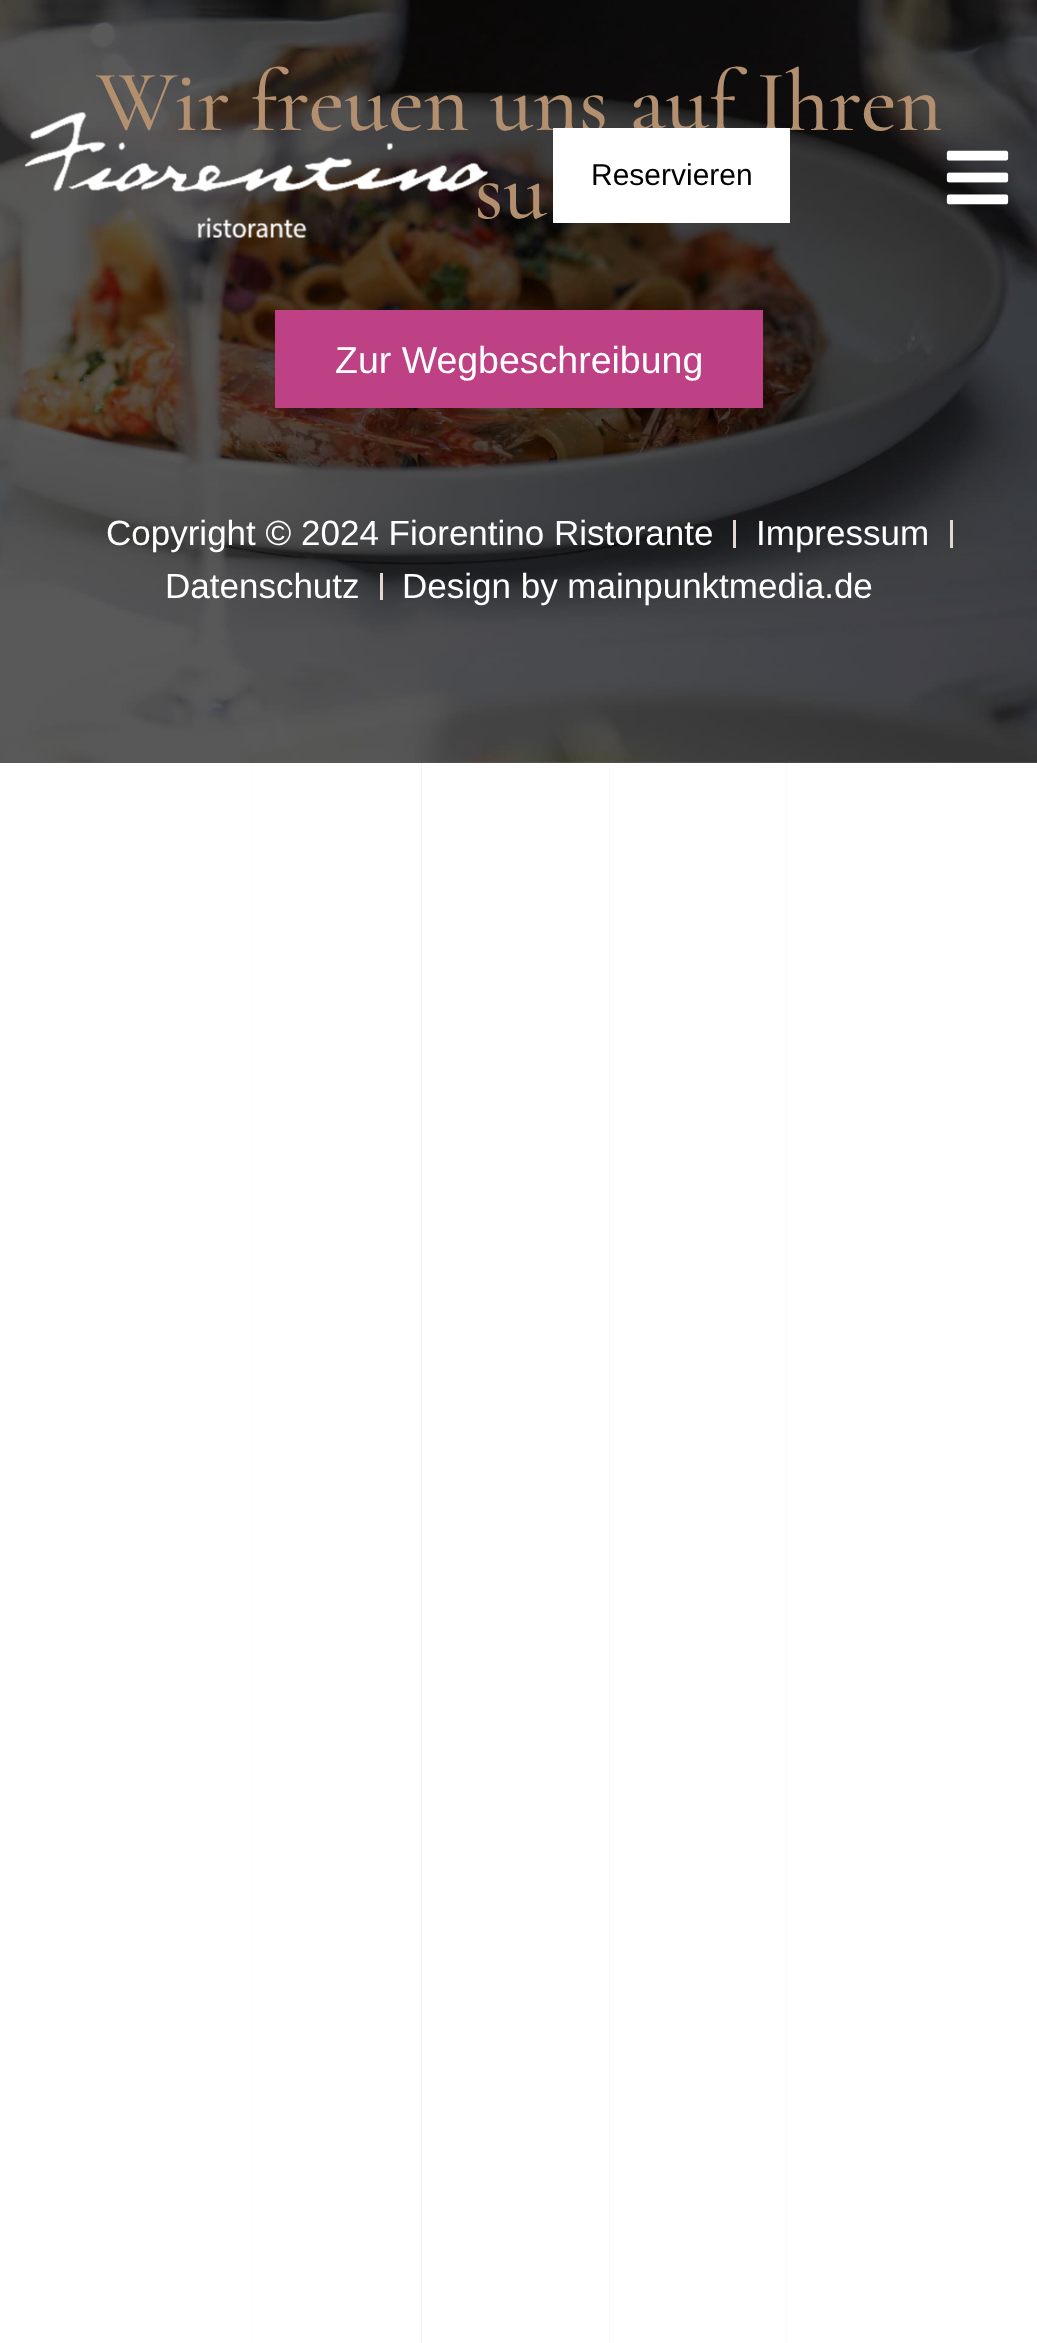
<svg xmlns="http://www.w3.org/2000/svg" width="1037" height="2343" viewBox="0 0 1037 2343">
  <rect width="100%" height="100%" fill="rgb(255,255,255)"/>
  <image x="251" y="762" width="536" height="1581" href="pic1.png"/>
  <image x="0" y="0" width="1037" height="763" href="pic2.png"/>
  <rect x="0" y="0" width="1037" height="763" fill="rgba(0,0,0,0.65)"/>
  <g font-family="Cormorant Garamond" font-size="87.5" font-weight="500" fill="rgb(178,143,111)">
    <text x="96" y="130">Wir freuen uns auf Ihren</text>
    <text x="474" y="218">su</text>
  </g>
  <rect x="275" y="310" width="488" height="98" fill="rgb(190,65,133)"/>
  <text x="335" y="373" font-family="Liberation Sans" font-size="37.5" fill="rgb(255,255,255)">Zur Wegbeschreibung</text>
  <text x="106" y="545" font-family="Liberation Sans" font-size="35" fill="rgb(255,255,255)">Copyright © 2024 Fiorentino Ristorante</text>
  <rect x="733" y="520" width="3" height="28" fill="rgb(225,217,208)"/>
  <text x="756" y="545" font-family="Liberation Sans" font-size="35" fill="rgb(255,255,255)">Impressum</text>
  <rect x="950" y="520" width="3" height="28" fill="rgb(225,217,208)"/>
  <text x="165" y="598" font-family="Liberation Sans" font-size="35" fill="rgb(255,255,255)">Datenschutz</text>
  <rect x="380" y="573" width="3" height="27" fill="rgb(225,217,208)"/>
  <text x="402" y="598" font-family="Liberation Sans" font-size="35" fill="rgb(255,255,255)">Design by mainpunktmedia.de</text>
  <image x="25" y="112" width="463" height="126" href="pic3.png"/>
  <rect x="553" y="128" width="237" height="95" fill="rgb(255,255,255)"/>
  <text x="591" y="185" font-family="Liberation Sans" font-size="30" fill="rgb(0,0,0)">Reservieren</text>
  <image x="946" y="150" width="63" height="55" href="pic4.png"/>
</svg>
